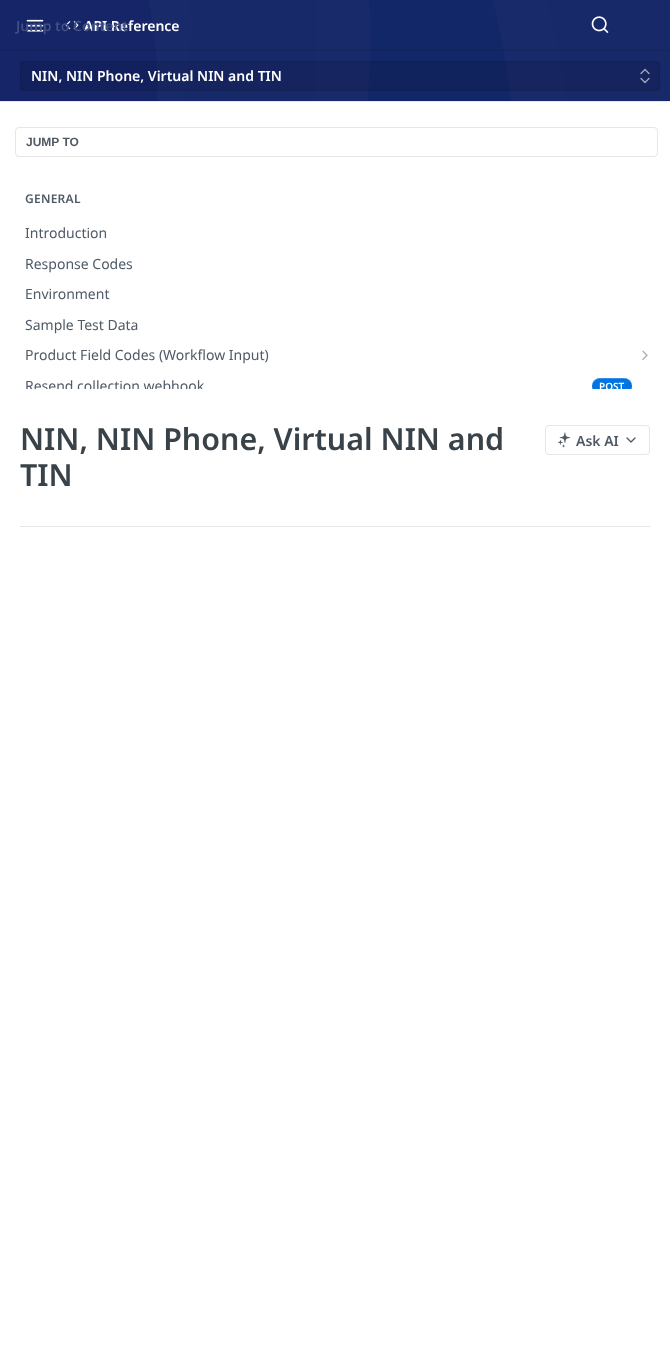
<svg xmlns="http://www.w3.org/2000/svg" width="670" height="1369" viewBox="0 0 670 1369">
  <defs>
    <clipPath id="clip1"><rect x="0" y="101" width="670" height="288"/></clipPath>
  </defs>
  <rect width="100%" height="100%" fill="rgb(255,255,255)"/>
  <rect x="0" y="101" width="670" height="1" fill="rgb(230,230,230)"/>
  <image x="0" y="0" width="670" height="101" href="pic1.png"/>
  <rect x="0" y="50" width="670" height="1" fill="rgba(0,0,0,0.1)"/>
  <image x="26" y="19" width="18" height="13" href="pic2.png"/>
  <image x="65" y="21" width="14" height="9" href="pic3.png"/>
  <text x="84" y="31" font-family="Noto Sans" font-size="14" font-weight="600" fill="rgb(255,255,255)">API Reference</text>
  <text x="16" y="31" font-family="Noto Sans" font-size="14" font-weight="600" fill="rgb(66,79,133)">Jump to Content</text>
  <image x="591" y="16" width="18" height="17" href="pic4.png"/>
  <rect x="20" y="61" width="640" height="30" rx="4" fill="rgba(0,0,0,0.1)"/>
  <rect x="20.5" y="61.5" width="639" height="29" rx="3.5" fill="none" stroke="rgba(0,0,0,0.1)"/>
  <text x="31" y="81" font-family="Noto Sans" font-size="14" font-weight="600" fill="rgb(255,255,255)">NIN, NIN Phone, Virtual NIN and TIN</text>
  <path d="M641 78.5L645 82.5L649 78.5M649 73.5L645 69.5L641 73.5" fill="none" stroke="rgb(162,168,191)" stroke-width="1.3" stroke-linecap="round" stroke-linejoin="round"/>
  <rect x="15.5" y="127.5" width="642" height="29" rx="3.5" fill="none" stroke="rgb(230,230,230)"/>
  <text x="26" y="146" font-family="Liberation Sans" font-size="12" font-weight="bold" fill="rgb(79,90,102)">JUMP TO</text>
  <text x="25" y="203" font-family="Noto Sans" font-size="12" font-weight="600" letter-spacing="0.25" fill="rgb(79,90,102)">GENERAL</text>
  <g font-family="Noto Sans" font-size="14" fill="rgb(79,90,102)">
    <text x="25" y="238">Introduction</text>
    <text x="25" y="269">Response Codes</text>
    <text x="25" y="299">Environment</text>
    <text x="25" y="330">Sample Test Data</text>
    <text x="25" y="360">Product Field Codes (Workflow Input)</text>
  </g>
  <image x="642" y="350" width="6" height="10" href="pic5.png"/>
  <g clip-path="url(#clip1)">
    <text x="25" y="391" font-family="Noto Sans" font-size="14" fill="rgb(79,90,102)">Resend collection webhook</text>
    <rect x="592" y="378" width="40" height="16" rx="8" fill="rgb(0,116,225)"/>
  </g>
  <path d="M600 379H626C629 380 631 382 632 384.5C631.5 381 628 378 624 378H600C595.5 378 592 381.5 592 386V387.5C592 383.5 595 379 600 379Z" fill="rgba(255,255,255,0.2)"/>
  <g clip-path="url(#clip1)">
    <text x="599" y="390" font-family="Noto Sans" font-size="10" font-weight="600" fill="rgb(255,255,255)">POST</text>
  </g>
  <rect x="20" y="526" width="630" height="1" fill="rgb(230,230,230)"/>
  <g font-family="Noto Sans" font-size="30.4" font-weight="600" fill="rgb(56,66,72)">
    <text>
      <tspan x="20" y="450">NIN, NIN Phone, Virtual NIN and</tspan>
      <tspan x="20" y="486">TIN</tspan>
    </text>
  </g>
  <rect x="545.5" y="425.5" width="104" height="29" rx="3.5" fill="none" stroke="rgb(230,230,230)"/>
  <image x="557" y="432" width="14" height="16" href="pic6.png"/>
  <text x="576" y="446" font-family="Noto Sans" font-size="14" font-weight="600" fill="rgb(79,90,102)">Ask AI</text>
  <path d="M627 438L631 442L635 438" fill="none" stroke="rgb(79,90,102)" stroke-width="1.3" stroke-linecap="round" stroke-linejoin="round"/>
</svg>
